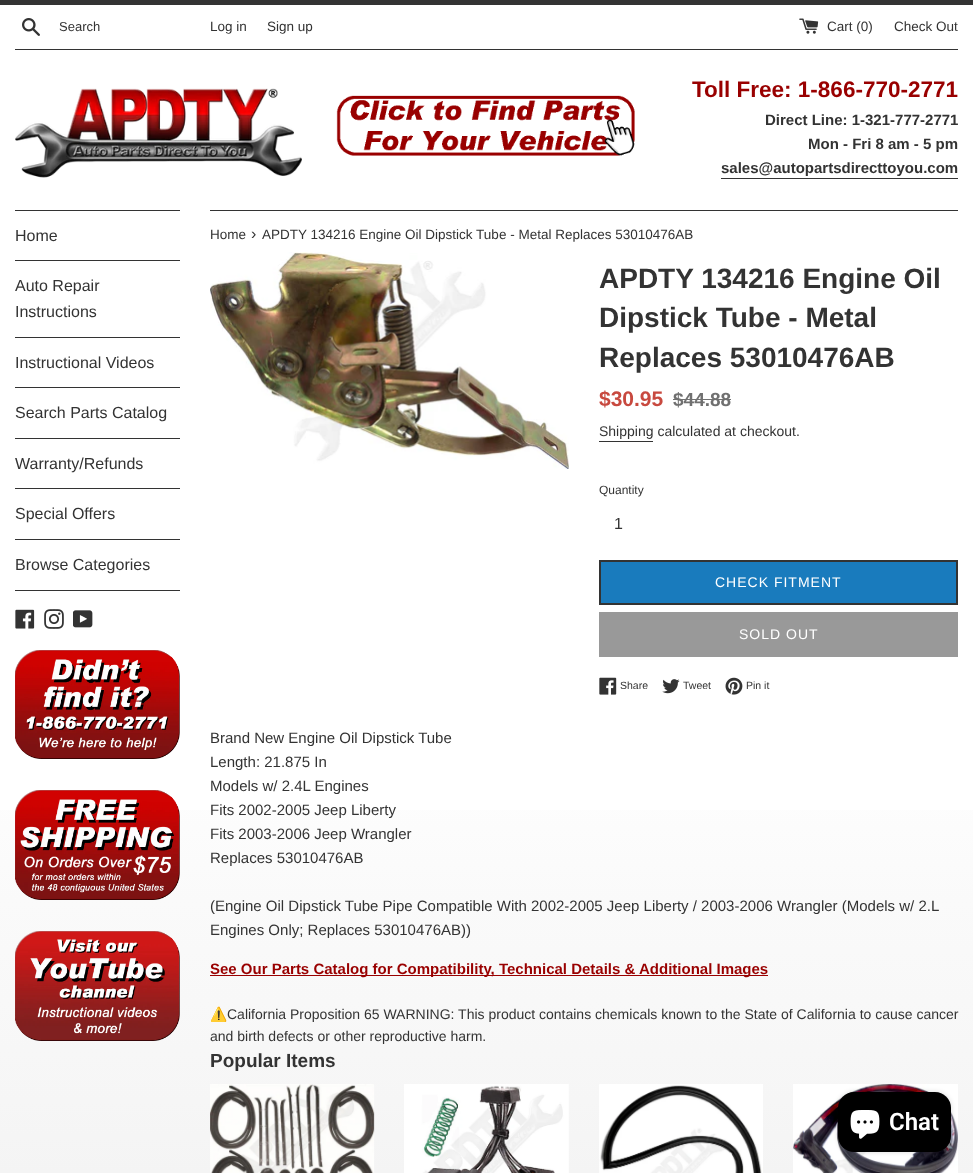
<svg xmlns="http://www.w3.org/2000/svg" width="973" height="1173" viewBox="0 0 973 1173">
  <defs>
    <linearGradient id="g1" gradientUnits="userSpaceOnUse" x1="487" y1="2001" x2="487" y2="0"><stop offset="0" stop-color="rgb(200,198,198)"/><stop offset="0.09" stop-color="rgb(210,209,209)"/><stop offset="0.18" stop-color="rgb(220,219,220)"/><stop offset="0.27" stop-color="rgb(230,230,230)"/><stop offset="0.36" stop-color="rgb(241,241,241)"/><stop offset="0.45" stop-color="rgb(246,246,246)"/><stop offset="0.55" stop-color="rgb(250,250,250)"/><stop offset="0.64" stop-color="rgb(255,255,255)"/><stop offset="1" stop-color="rgb(255,255,255)"/></linearGradient>
  </defs>
  <rect width="100%" height="100%" fill="rgb(255,255,255)"/>
  <rect x="0" y="810" width="973" height="363" fill="url(#g1)"/>
  <rect x="0" y="0" width="973" height="5" fill="rgb(51,51,51)"/>
  <image x="22" y="18" width="18" height="18" href="pic1.png"/>
  <text x="59" y="31" font-family="Liberation Sans" font-size="13" fill="rgb(51,51,51)">Search</text>
  <g font-family="Liberation Sans" font-size="13.5" fill="rgb(51,51,51)">
    <text x="210" y="31">Log in</text>
    <text x="267" y="31">Sign up</text>
  </g>
  <image x="799" y="18" width="20" height="16" href="pic2.png"/>
  <g font-family="Liberation Sans" font-size="13.5" fill="rgb(51,51,51)">
    <text x="827" y="31">Cart (0)</text>
    <text x="894" y="31">Check Out</text>
  </g>
  <rect x="15" y="49" width="943" height="1" fill="rgb(51,51,51)"/>
  <image x="15" y="88" width="287" height="90" href="pic3.png"/>
  <image x="336" y="95" width="299" height="61" href="pic4.png"/>
  <text x="692" y="97" font-family="Liberation Sans" font-size="22.5" font-weight="bold" fill="rgb(153,0,0)">Toll Free: 1-866-770-2771</text>
  <g font-family="Liberation Sans" font-size="15" font-weight="bold" fill="rgb(51,51,51)">
    <text x="765" y="125">Direct Line: 1-321-777-2771</text>
    <text x="808" y="149">Mon - Fri 8 am - 5 pm</text>
    <text x="721" y="173">sales@autopartsdirecttoyou.com</text>
  </g>
  <rect x="721" y="178" width="237" height="1" fill="rgb(51,51,51)"/>
  <rect x="15" y="210" width="165" height="1" fill="rgb(51,51,51)"/>
  <rect x="15" y="260" width="165" height="1" fill="rgb(51,51,51)"/>
  <text x="15" y="241" font-family="Liberation Sans" font-size="16" fill="rgb(51,51,51)">Home</text>
  <rect x="15" y="337" width="165" height="1" fill="rgb(51,51,51)"/>
  <g font-family="Liberation Sans" font-size="16" fill="rgb(51,51,51)">
    <text>
      <tspan x="15" y="291">Auto Repair</tspan>
      <tspan x="15" y="317">Instructions</tspan>
    </text>
  </g>
  <rect x="15" y="387" width="165" height="1" fill="rgb(51,51,51)"/>
  <text x="15" y="368" font-family="Liberation Sans" font-size="16" fill="rgb(51,51,51)">Instructional Videos</text>
  <rect x="15" y="438" width="165" height="1" fill="rgb(51,51,51)"/>
  <text x="15" y="418" font-family="Liberation Sans" font-size="16" fill="rgb(51,51,51)">Search Parts Catalog</text>
  <rect x="15" y="488" width="165" height="1" fill="rgb(51,51,51)"/>
  <text x="15" y="469" font-family="Liberation Sans" font-size="16" fill="rgb(51,51,51)">Warranty/Refunds</text>
  <rect x="15" y="539" width="165" height="1" fill="rgb(51,51,51)"/>
  <text x="15" y="519" font-family="Liberation Sans" font-size="16" fill="rgb(51,51,51)">Special Offers</text>
  <rect x="15" y="590" width="165" height="1" fill="rgb(51,51,51)"/>
  <text x="15" y="570" font-family="Liberation Sans" font-size="16" fill="rgb(51,51,51)">Browse Categories</text>
  <image x="15" y="609" width="20" height="20" href="pic5.png"/>
  <image x="44" y="609" width="20" height="20" href="pic6.png"/>
  <image x="73" y="610" width="20" height="18" href="pic7.png"/>
  <image x="15" y="650" width="165" height="109" href="pic8.png"/>
  <image x="15" y="790" width="165" height="110" href="pic9.png"/>
  <image x="15" y="931" width="165" height="110" href="pic10.png"/>
  <rect x="210" y="210" width="748" height="1" fill="rgb(51,51,51)"/>
  <text x="210" y="239" font-family="Liberation Sans" font-size="13.5" fill="rgb(51,51,51)">Home</text>
  <text x="251" y="239" font-family="Liberation Sans" font-size="16" fill="rgb(51,51,51)">›</text>
  <text x="262" y="239" font-family="Liberation Sans" font-size="13.5" fill="rgb(51,51,51)">APDTY 134216 Engine Oil Dipstick Tube - Metal Replaces 53010476AB</text>
  <image x="210" y="252" width="359" height="217" href="pic11.png"/>
  <g font-family="Liberation Sans" font-size="28" font-weight="bold" fill="rgb(51,51,51)">
    <text>
      <tspan x="599" y="288">APDTY 134216 Engine Oil</tspan>
      <tspan x="599" y="327">Dipstick Tube - Metal</tspan>
      <tspan x="599" y="367">Replaces 53010476AB</tspan>
    </text>
  </g>
  <text x="599" y="406" font-family="Liberation Sans" font-size="21" font-weight="bold" fill="rgb(200,73,63)">$30.95</text>
  <text x="673" y="406" font-family="Liberation Sans" font-size="19" font-weight="bold" fill="rgb(112,112,112)">$44.88</text>
  <rect x="673" y="399" width="58" height="1" fill="rgb(112,112,112)"/>
  <text x="599" y="436" font-family="Liberation Sans" font-size="14" fill="rgb(51,51,51)">Shipping calculated at checkout.</text>
  <rect x="599" y="441" width="54" height="1" fill="rgb(51,51,51)"/>
  <text x="599" y="494" font-family="Liberation Sans" font-size="12" fill="rgb(51,51,51)">Quantity</text>
  <text x="614" y="529" font-family="Liberation Sans" font-size="16" fill="rgb(51,51,51)">1</text>
  <rect x="600" y="561" width="357" height="43" fill="rgb(25,123,189)" stroke="rgb(51,51,51)" stroke-width="2"/>
  <text x="715" y="587" font-family="Liberation Sans" font-size="14" letter-spacing="1" fill="rgb(255,255,255)">CHECK FITMENT</text>
  <rect x="599" y="612" width="359" height="45" fill="rgb(153,153,153)"/>
  <text x="739" y="639" font-family="Liberation Sans" font-size="14" letter-spacing="1" fill="rgb(255,255,255)">SOLD OUT</text>
  <image x="599" y="677" width="18" height="18" href="pic12.png"/>
  <text x="620" y="689" font-family="Liberation Sans" font-size="10.5" fill="rgb(51,51,51)">Share</text>
  <image x="662" y="679" width="18" height="15" href="pic13.png"/>
  <text x="683" y="689" font-family="Liberation Sans" font-size="10.5" fill="rgb(51,51,51)">Tweet</text>
  <image x="725" y="677" width="18" height="18" href="pic14.png"/>
  <text x="746" y="689" font-family="Liberation Sans" font-size="10.5" fill="rgb(51,51,51)">Pin it</text>
  <g font-family="Liberation Sans" font-size="15" fill="rgb(51,51,51)">
    <text>
      <tspan x="210" y="743">Brand New Engine Oil Dipstick Tube</tspan>
      <tspan x="210" y="767">Length: 21.875 In</tspan>
      <tspan x="210" y="791">Models w/ 2.4L Engines</tspan>
      <tspan x="210" y="815">Fits 2002-2005 Jeep Liberty</tspan>
      <tspan x="210" y="839">Fits 2003-2006 Jeep Wrangler</tspan>
      <tspan x="210" y="863">Replaces 53010476AB</tspan>
    </text>
    <text>
      <tspan x="210" y="911">(Engine Oil Dipstick Tube Pipe Compatible With 2002-2005 Jeep Liberty / 2003-2006 Wrangler (Models w/ 2.L</tspan>
      <tspan x="210" y="935">Engines Only; Replaces 53010476AB))</tspan>
    </text>
  </g>
  <rect x="210" y="975" width="558" height="1" fill="rgb(153,0,0)"/>
  <text x="210" y="974" font-family="Liberation Sans" font-size="15" font-weight="bold" fill="rgb(153,0,0)">See Our Parts Catalog for Compatibility, Technical Details &amp; Additional Images</text>
  <text x="210" y="1019" font-family="Noto Color Emoji" font-size="14" fill="rgb(51,51,51)">⚠️</text>
  <g font-family="Liberation Sans" font-size="14" fill="rgb(51,51,51)">
    <text x="227" y="1019">California Proposition 65 WARNING: This product contains chemicals known to the State of California to cause cancer</text>
    <text x="210" y="1041">and birth defects or other reproductive harm.</text>
  </g>
  <text x="210" y="1067" font-family="Liberation Sans" font-size="19" font-weight="bold" fill="rgb(51,51,51)">Popular Items</text>
  <image x="210" y="1084" width="165" height="89" href="pic15.png"/>
  <image x="404" y="1084" width="165" height="89" href="pic16.png"/>
  <image x="599" y="1084" width="164" height="89" href="pic17.png"/>
  <image x="793" y="1084" width="165" height="89" href="pic18.png"/>
  <rect x="838" y="1092" width="113" height="60" rx="16" fill="rgba(0,0,0,0.15)" filter="blur(2.5px)"/>
  <rect x="838" y="1092" width="113" height="60" rx="16" fill="rgb(0,0,0)"/>
  <image x="850" y="1110" width="30" height="29" href="pic19.png"/>
  <text x="889" y="1130" font-family="Roboto" font-size="24" font-weight="600" fill="rgb(255,255,255)">Chat</text>
</svg>
